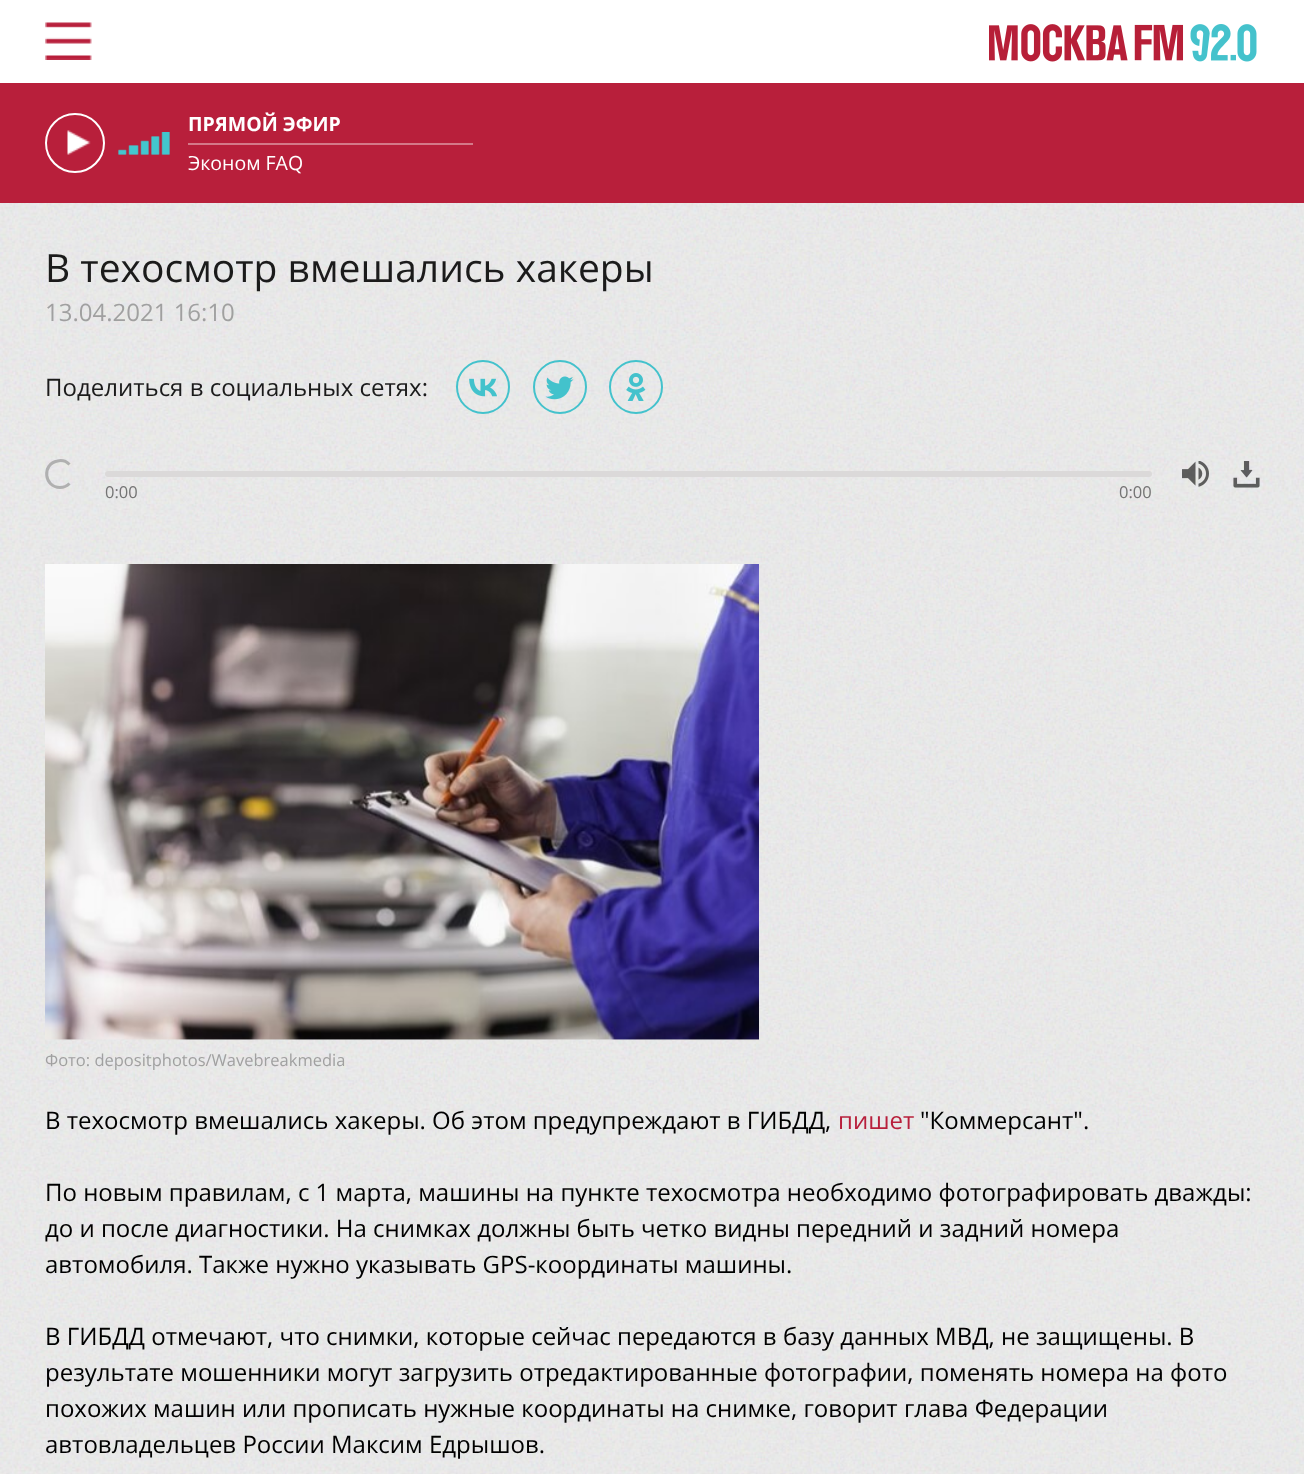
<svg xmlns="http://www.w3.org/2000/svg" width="1304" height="1474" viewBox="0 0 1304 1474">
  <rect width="100%" height="100%" fill="rgb(255,255,255)"/>
  <image x="0" y="203" width="1304" height="1271" href="pic1.png"/>
  <image x="45" y="22" width="47" height="38" href="pic2.png"/>
  <image x="989" y="24" width="268" height="38" href="pic3.png"/>
  <rect x="0" y="83" width="1304" height="120" fill="rgb(184,31,59)"/>
  <image x="67" y="130" width="24" height="25" href="pic4.png"/>
  <circle cx="75" cy="143" r="29" fill="none" stroke="rgb(255,255,255)" stroke-width="2"/>
  <image x="118" y="132" width="52" height="23" href="pic5.png"/>
  <image x="118" y="132" width="52" height="23" href="pic6.png"/>
  <rect x="188" y="143" width="285" height="2" fill="rgb(212,121,137)"/>
  <text x="188" y="131" font-family="Open Sans" font-size="19.5" font-weight="bold" fill="rgb(255,255,255)">ПРЯМОЙ ЭФИР</text>
  <text x="188" y="170" font-family="Open Sans" font-size="19.5" fill="rgb(255,255,255)">Эконом FAQ</text>
  <text x="45" y="282" font-family="Open Sans" font-size="39" fill="rgb(27,27,27)">В техосмотр вмешались хакеры</text>
  <text x="45" y="321" font-family="Open Sans" font-size="24" fill="rgb(160,160,160)">13.04.2021 16:10</text>
  <text x="45" y="396" font-family="Open Sans" font-size="24" fill="rgb(27,27,27)">Поделиться в социальных сетях:</text>
  <circle cx="483" cy="387" r="26" fill="none" stroke="rgb(67,194,204)" stroke-width="2"/>
  <image x="469" y="378" width="28" height="19" href="pic7.png"/>
  <circle cx="560" cy="387" r="26" fill="none" stroke="rgb(67,194,204)" stroke-width="2"/>
  <image x="545" y="376" width="29" height="24" href="pic8.png"/>
  <circle cx="636" cy="387" r="26" fill="none" stroke="rgb(67,194,204)" stroke-width="2"/>
  <image x="626" y="373" width="20" height="28" href="pic9.png"/>
  <path d="M69.5 483.5C67 486 63.5 487.5 60 487.5C44 487.5 41.5 464 57.5 461C61.5 460 66.5 461.5 69.5 464.5" fill="none" stroke="rgb(176,176,176)" stroke-width="3"/>
  <image x="1182" y="461" width="27" height="26" href="pic10.png"/>
  <image x="1233" y="461" width="27" height="27" href="pic11.png"/>
  <rect x="105" y="471" width="1047" height="6" rx="3" fill="rgb(219,217,217)"/>
  <g font-family="Open Sans" font-size="16.5" fill="rgb(116,116,116)">
    <text x="105" y="498">0:00</text>
    <text x="1119" y="498">0:00</text>
  </g>
  <image x="45" y="564" width="714" height="476" href="pic12.png"/>
  <text x="45" y="1066" font-family="Open Sans" font-size="16.5" fill="rgb(160,160,160)">Фото: depositphotos/Wavebreakmedia</text>
  <text x="45" y="1129" font-family="Open Sans" font-size="24" fill="rgb(0,0,0)">В техосмотр вмешались хакеры. Об этом предупреждают в ГИБДД,</text>
  <text x="838" y="1129" font-family="Open Sans" font-size="24" fill="rgb(184,31,59)">пишет</text>
  <g font-family="Open Sans" font-size="24" fill="rgb(0,0,0)">
    <text x="920" y="1129">"Коммерсант".</text>
    <text>
      <tspan x="45" y="1201">По новым правилам, с 1 марта, машины на пункте техосмотра необходимо фотографировать дважды:</tspan>
      <tspan x="45" y="1237">до и после диагностики. На снимках должны быть четко видны передний и задний номера</tspan>
      <tspan x="45" y="1273">автомобиля. Также нужно указывать GPS-координаты машины.</tspan>
    </text>
    <text>
      <tspan x="45" y="1345">В ГИБДД отмечают, что снимки, которые сейчас передаются в базу данных МВД, не защищены. В</tspan>
      <tspan x="45" y="1381">результате мошенники могут загрузить отредактированные фотографии, поменять номера на фото</tspan>
      <tspan x="45" y="1417">похожих машин или прописать нужные координаты на снимке, говорит глава Федерации</tspan>
      <tspan x="45" y="1453">автовладельцев России Максим Едрышов.</tspan>
    </text>
  </g>
</svg>
